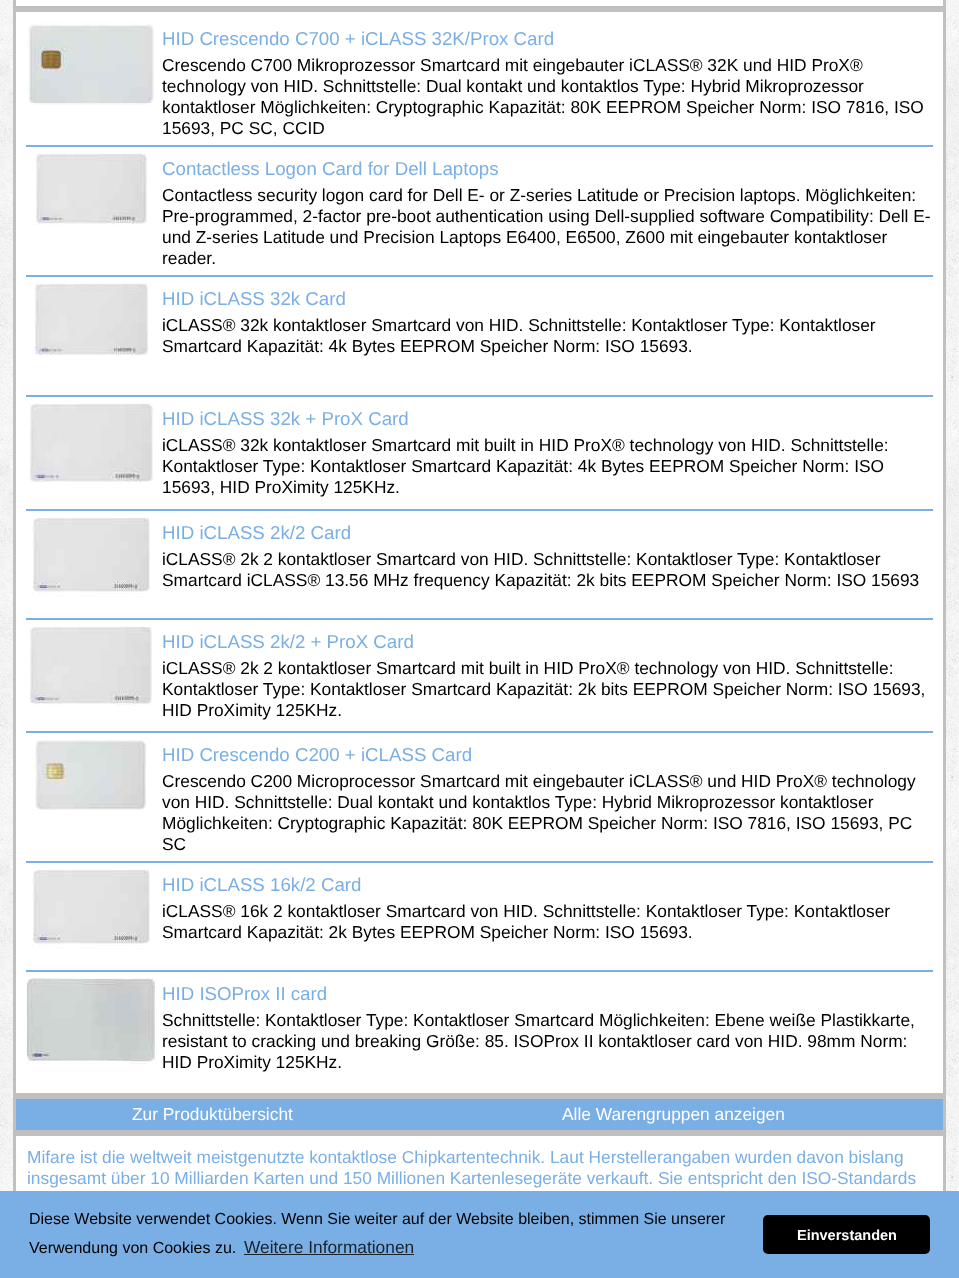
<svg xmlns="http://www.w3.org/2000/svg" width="959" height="1278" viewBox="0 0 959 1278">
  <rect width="100%" height="100%" fill="rgb(255,255,255)"/>
  <image x="0" y="0" width="959" height="1191" href="pic1.png"/>
  <rect x="14.5" y="-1.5" width="930" height="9" fill="rgb(255,255,255)" stroke="rgb(192,192,192)" stroke-width="3"/>
  <rect x="14.5" y="10.5" width="930" height="1084" fill="rgb(255,255,255)" stroke="rgb(192,192,192)" stroke-width="3"/>
  <image x="27" y="23" width="127" height="82" href="pic2.png"/>
  <text x="162" y="45" font-family="Liberation Sans" font-size="18.7" fill="rgb(122,175,229)">HID Crescendo C700 + iCLASS 32K/Prox Card</text>
  <g font-family="Liberation Sans" font-size="17.33" fill="rgb(0,0,0)">
    <text>
      <tspan x="162" y="71">Crescendo C700 Mikroprozessor Smartcard mit eingebauter iCLASS® 32K und HID ProX®</tspan>
      <tspan x="162" y="92">technology von HID. Schnittstelle: Dual kontakt und kontaktlos Type: Hybrid Mikroprozessor</tspan>
      <tspan x="162" y="113">kontaktloser Möglichkeiten: Cryptographic Kapazität: 80K EEPROM Speicher Norm: ISO 7816, ISO</tspan>
      <tspan x="162" y="134">15693, PC SC, CCID</tspan>
    </text>
  </g>
  <rect x="26" y="145" width="907" height="2" fill="rgb(122,175,229)"/>
  <image x="35" y="153" width="112" height="72" href="pic3.png"/>
  <text x="162" y="175" font-family="Liberation Sans" font-size="18.7" fill="rgb(122,175,229)">Contactless Logon Card for Dell Laptops</text>
  <g font-family="Liberation Sans" font-size="17.33" fill="rgb(0,0,0)">
    <text>
      <tspan x="162" y="201">Contactless security logon card for Dell E- or Z-series Latitude or Precision laptops. Möglichkeiten:</tspan>
      <tspan x="162" y="222">Pre-programmed, 2-factor pre-boot authentication using Dell-supplied software Compatibility: Dell E-</tspan>
      <tspan x="162" y="243">und Z-series Latitude und Precision Laptops E6400, E6500, Z600 mit eingebauter kontaktloser</tspan>
      <tspan x="162" y="264">reader.</tspan>
    </text>
  </g>
  <rect x="26" y="275" width="907" height="2" fill="rgb(122,175,229)"/>
  <image x="34" y="283" width="114" height="72" href="pic4.png"/>
  <text x="162" y="305" font-family="Liberation Sans" font-size="18.7" fill="rgb(122,175,229)">HID iCLASS 32k Card</text>
  <g font-family="Liberation Sans" font-size="17.33" fill="rgb(0,0,0)">
    <text>
      <tspan x="162" y="331">iCLASS® 32k kontaktloser Smartcard von HID. Schnittstelle: Kontaktloser Type: Kontaktloser</tspan>
      <tspan x="162" y="352">Smartcard Kapazität: 4k Bytes EEPROM Speicher Norm: ISO 15693.</tspan>
    </text>
  </g>
  <rect x="26" y="395" width="907" height="2" fill="rgb(122,175,229)"/>
  <image x="29" y="403" width="124" height="80" href="pic5.png"/>
  <text x="162" y="425" font-family="Liberation Sans" font-size="18.7" fill="rgb(122,175,229)">HID iCLASS 32k + ProX Card</text>
  <g font-family="Liberation Sans" font-size="17.33" fill="rgb(0,0,0)">
    <text>
      <tspan x="162" y="451">iCLASS® 32k kontaktloser Smartcard mit built in HID ProX® technology von HID. Schnittstelle:</tspan>
      <tspan x="162" y="472">Kontaktloser Type: Kontaktloser Smartcard Kapazität: 4k Bytes EEPROM Speicher Norm: ISO</tspan>
      <tspan x="162" y="493">15693, HID ProXimity 125KHz.</tspan>
    </text>
  </g>
  <rect x="26" y="509" width="907" height="2" fill="rgb(122,175,229)"/>
  <image x="32" y="517" width="118" height="80" href="pic6.png"/>
  <text x="162" y="539" font-family="Liberation Sans" font-size="18.7" fill="rgb(122,175,229)">HID iCLASS 2k/2 Card</text>
  <g font-family="Liberation Sans" font-size="17.33" fill="rgb(0,0,0)">
    <text>
      <tspan x="162" y="565">iCLASS® 2k 2 kontaktloser Smartcard von HID. Schnittstelle: Kontaktloser Type: Kontaktloser</tspan>
      <tspan x="162" y="586">Smartcard iCLASS® 13.56 MHz frequency Kapazität: 2k bits EEPROM Speicher Norm: ISO 15693</tspan>
    </text>
  </g>
  <rect x="26" y="618" width="907" height="2" fill="rgb(122,175,229)"/>
  <image x="29" y="626" width="123" height="80" href="pic7.png"/>
  <text x="162" y="648" font-family="Liberation Sans" font-size="18.7" fill="rgb(122,175,229)">HID iCLASS 2k/2 + ProX Card</text>
  <g font-family="Liberation Sans" font-size="17.33" fill="rgb(0,0,0)">
    <text>
      <tspan x="162" y="674">iCLASS® 2k 2 kontaktloser Smartcard mit built in HID ProX® technology von HID. Schnittstelle:</tspan>
      <tspan x="162" y="695">Kontaktloser Type: Kontaktloser Smartcard Kapazität: 2k bits EEPROM Speicher Norm: ISO 15693,</tspan>
      <tspan x="162" y="716">HID ProXimity 125KHz.</tspan>
    </text>
  </g>
  <rect x="26" y="731" width="907" height="2" fill="rgb(122,175,229)"/>
  <image x="34" y="739" width="112" height="72" href="pic8.png"/>
  <text x="162" y="761" font-family="Liberation Sans" font-size="18.7" fill="rgb(122,175,229)">HID Crescendo C200 + iCLASS Card</text>
  <g font-family="Liberation Sans" font-size="17.33" fill="rgb(0,0,0)">
    <text>
      <tspan x="162" y="787">Crescendo C200 Microprocessor Smartcard mit eingebauter iCLASS® und HID ProX® technology</tspan>
      <tspan x="162" y="808">von HID. Schnittstelle: Dual kontakt und kontaktlos Type: Hybrid Mikroprozessor kontaktloser</tspan>
      <tspan x="162" y="829">Möglichkeiten: Cryptographic Kapazität: 80K EEPROM Speicher Norm: ISO 7816, ISO 15693, PC</tspan>
      <tspan x="162" y="850">SC</tspan>
    </text>
  </g>
  <rect x="26" y="861" width="907" height="2" fill="rgb(122,175,229)"/>
  <image x="32" y="869" width="118" height="80" href="pic6.png"/>
  <text x="162" y="891" font-family="Liberation Sans" font-size="18.7" fill="rgb(122,175,229)">HID iCLASS 16k/2 Card</text>
  <g font-family="Liberation Sans" font-size="17.33" fill="rgb(0,0,0)">
    <text>
      <tspan x="162" y="917">iCLASS® 16k 2 kontaktloser Smartcard von HID. Schnittstelle: Kontaktloser Type: Kontaktloser</tspan>
      <tspan x="162" y="938">Smartcard Kapazität: 2k Bytes EEPROM Speicher Norm: ISO 15693.</tspan>
    </text>
  </g>
  <rect x="26" y="970" width="907" height="2" fill="rgb(122,175,229)"/>
  <image x="27" y="978" width="128" height="88" href="pic9.png"/>
  <text x="162" y="1000" font-family="Liberation Sans" font-size="18.7" fill="rgb(122,175,229)">HID ISOProx II card</text>
  <g font-family="Liberation Sans" font-size="17.33" fill="rgb(0,0,0)">
    <text>
      <tspan x="162" y="1026">Schnittstelle: Kontaktloser Type: Kontaktloser Smartcard Möglichkeiten: Ebene weiße Plastikkarte,</tspan>
      <tspan x="162" y="1047">resistant to cracking und breaking Größe: 85. ISOProx II kontaktloser card von HID. 98mm Norm:</tspan>
      <tspan x="162" y="1068">HID ProXimity 125KHz.</tspan>
    </text>
  </g>
  <rect x="14.5" y="1097.5" width="930" height="34" fill="rgb(122,175,229)" stroke="rgb(192,192,192)" stroke-width="3"/>
  <g font-family="Liberation Sans" font-size="17.33" fill="rgb(255,255,255)">
    <text x="132" y="1120">Zur Produktübersicht</text>
    <text x="562" y="1120">Alle Warengruppen anzeigen</text>
  </g>
  <rect x="16" y="1136" width="927" height="55" fill="rgb(255,255,255)"/>
  <rect x="14.5" y="1134.5" width="930" height="88" fill="none" stroke="rgb(192,192,192)" stroke-width="3"/>
  <g font-family="Liberation Sans" font-size="17.33" fill="rgb(122,175,229)">
    <text>
      <tspan x="27" y="1163">Mifare ist die weltweit meistgenutzte kontaktlose Chipkartentechnik. Laut Herstellerangaben wurden davon bislang</tspan>
      <tspan x="27" y="1184">insgesamt über 10 Milliarden Karten und 150 Millionen Kartenlesegeräte verkauft. Sie entspricht den ISO-Standards</tspan>
    </text>
  </g>
  <rect x="0" y="1191" width="959" height="87" fill="rgb(122,175,229)"/>
  <g font-family="Liberation Sans" font-size="16" fill="rgb(0,0,0)">
    <text>
      <tspan x="29" y="1224">Diese Website verwendet Cookies. Wenn Sie weiter auf der Website bleiben, stimmen Sie unserer</tspan>
      <tspan x="29" y="1253">Verwendung von Cookies zu.</tspan>
    </text>
  </g>
  <text x="244" y="1253" font-family="Liberation Sans" font-size="17.33" fill="rgb(24,35,46)">Weitere Informationen</text>
  <rect x="244" y="1254" width="170" height="1" fill="rgb(24,35,46)"/>
  <rect x="763" y="1215" width="167" height="39" rx="5" fill="rgb(0,0,0)"/>
  <text x="797" y="1240" font-family="Liberation Sans" font-size="14.5" font-weight="bold" fill="rgb(255,255,255)">Einverstanden</text>
</svg>
